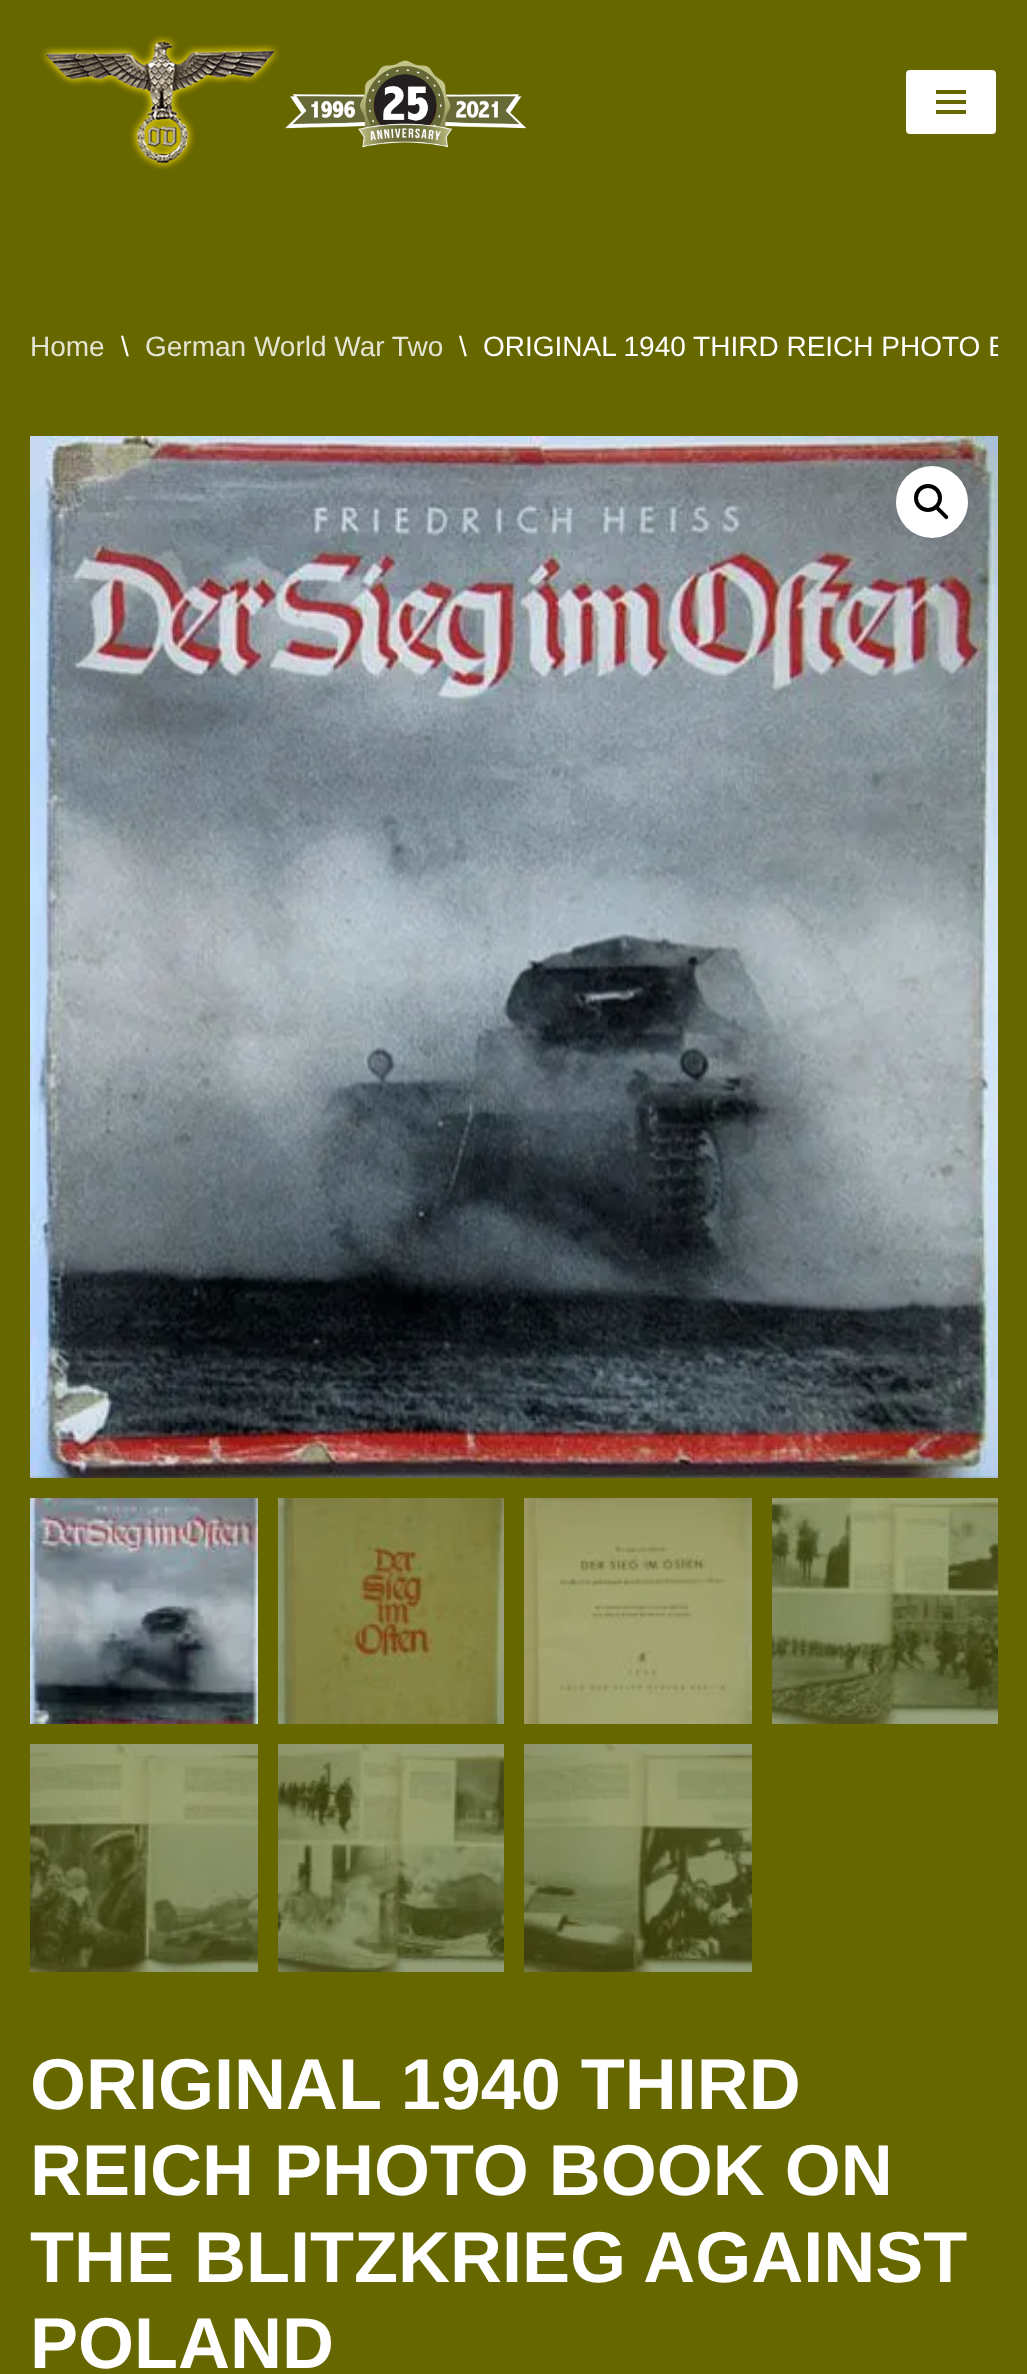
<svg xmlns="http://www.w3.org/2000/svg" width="1027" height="2374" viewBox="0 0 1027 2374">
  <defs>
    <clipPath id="clip1"><rect x="30" y="324" width="968" height="44"/></clipPath>
  </defs>
  <rect width="100%" height="100%" fill="rgb(103,103,0)"/>
  <image x="40" y="35" width="487" height="135" href="pic1.png"/>
  <rect x="905" y="69" width="92" height="66" rx="5" fill="rgb(255,255,255)" stroke="rgb(103,103,0)" stroke-width="2"/>
  <rect x="936" y="90" width="30" height="4" fill="rgb(103,103,0)"/>
  <rect x="936" y="100" width="30" height="4" fill="rgb(103,103,0)"/>
  <rect x="936" y="110" width="30" height="4" fill="rgb(103,103,0)"/>
  <text x="30" y="356" font-family="Liberation Sans" font-size="28" fill="rgb(228,228,211)">Home</text>
  <text x="121" y="356" font-family="Liberation Sans" font-size="28" fill="rgb(255,255,255)">\</text>
  <text x="145" y="356" font-family="Liberation Sans" font-size="28" fill="rgb(228,228,211)">German World War Two</text>
  <text x="459" y="356" font-family="Liberation Sans" font-size="28" fill="rgb(255,255,255)">\</text>
  <g clip-path="url(#clip1)">
    <text x="483" y="356" font-family="Liberation Sans" font-size="28" fill="rgb(255,255,255)">ORIGINAL 1940 THIRD REICH PHOTO B</text>
  </g>
  <image x="30" y="436" width="968" height="1042" href="pic2.png"/>
  <circle cx="932" cy="502" r="36" fill="rgb(255,255,255)"/>
  <circle cx="928" cy="498" r="12" fill="none" stroke="rgb(0,0,0)" stroke-width="4"/>
  <path d="M936.5 507C937 506.5 938.5 506.5 939 507L947.5 515.5C948.5 516.5 948.5 518 947.5 518.5C947 519.5 945.5 519.5 945 518.5L936.5 510C935.5 509.5 935.5 508 936.5 507Z" fill="rgb(0,0,0)"/>
  <image x="30" y="1498" width="228" height="226" href="pic3.png"/>
  <image x="278" y="1498" width="226" height="226" href="pic4.png"/>
  <image x="524" y="1498" width="228" height="226" href="pic5.png"/>
  <image x="772" y="1498" width="226" height="226" href="pic6.png"/>
  <image x="30" y="1744" width="228" height="228" href="pic7.png"/>
  <image x="278" y="1744" width="226" height="228" href="pic8.png"/>
  <image x="524" y="1744" width="228" height="228" href="pic9.png"/>
  <g font-family="Liberation Sans" font-size="72" font-weight="bold" fill="rgb(255,255,255)">
    <text>
      <tspan x="30" y="2109">ORIGINAL 1940 THIRD</tspan>
      <tspan x="30" y="2195">REICH PHOTO BOOK ON</tspan>
      <tspan x="30" y="2282">THE BLITZKRIEG AGAINST</tspan>
      <tspan x="30" y="2368">POLAND</tspan>
    </text>
  </g>
</svg>
